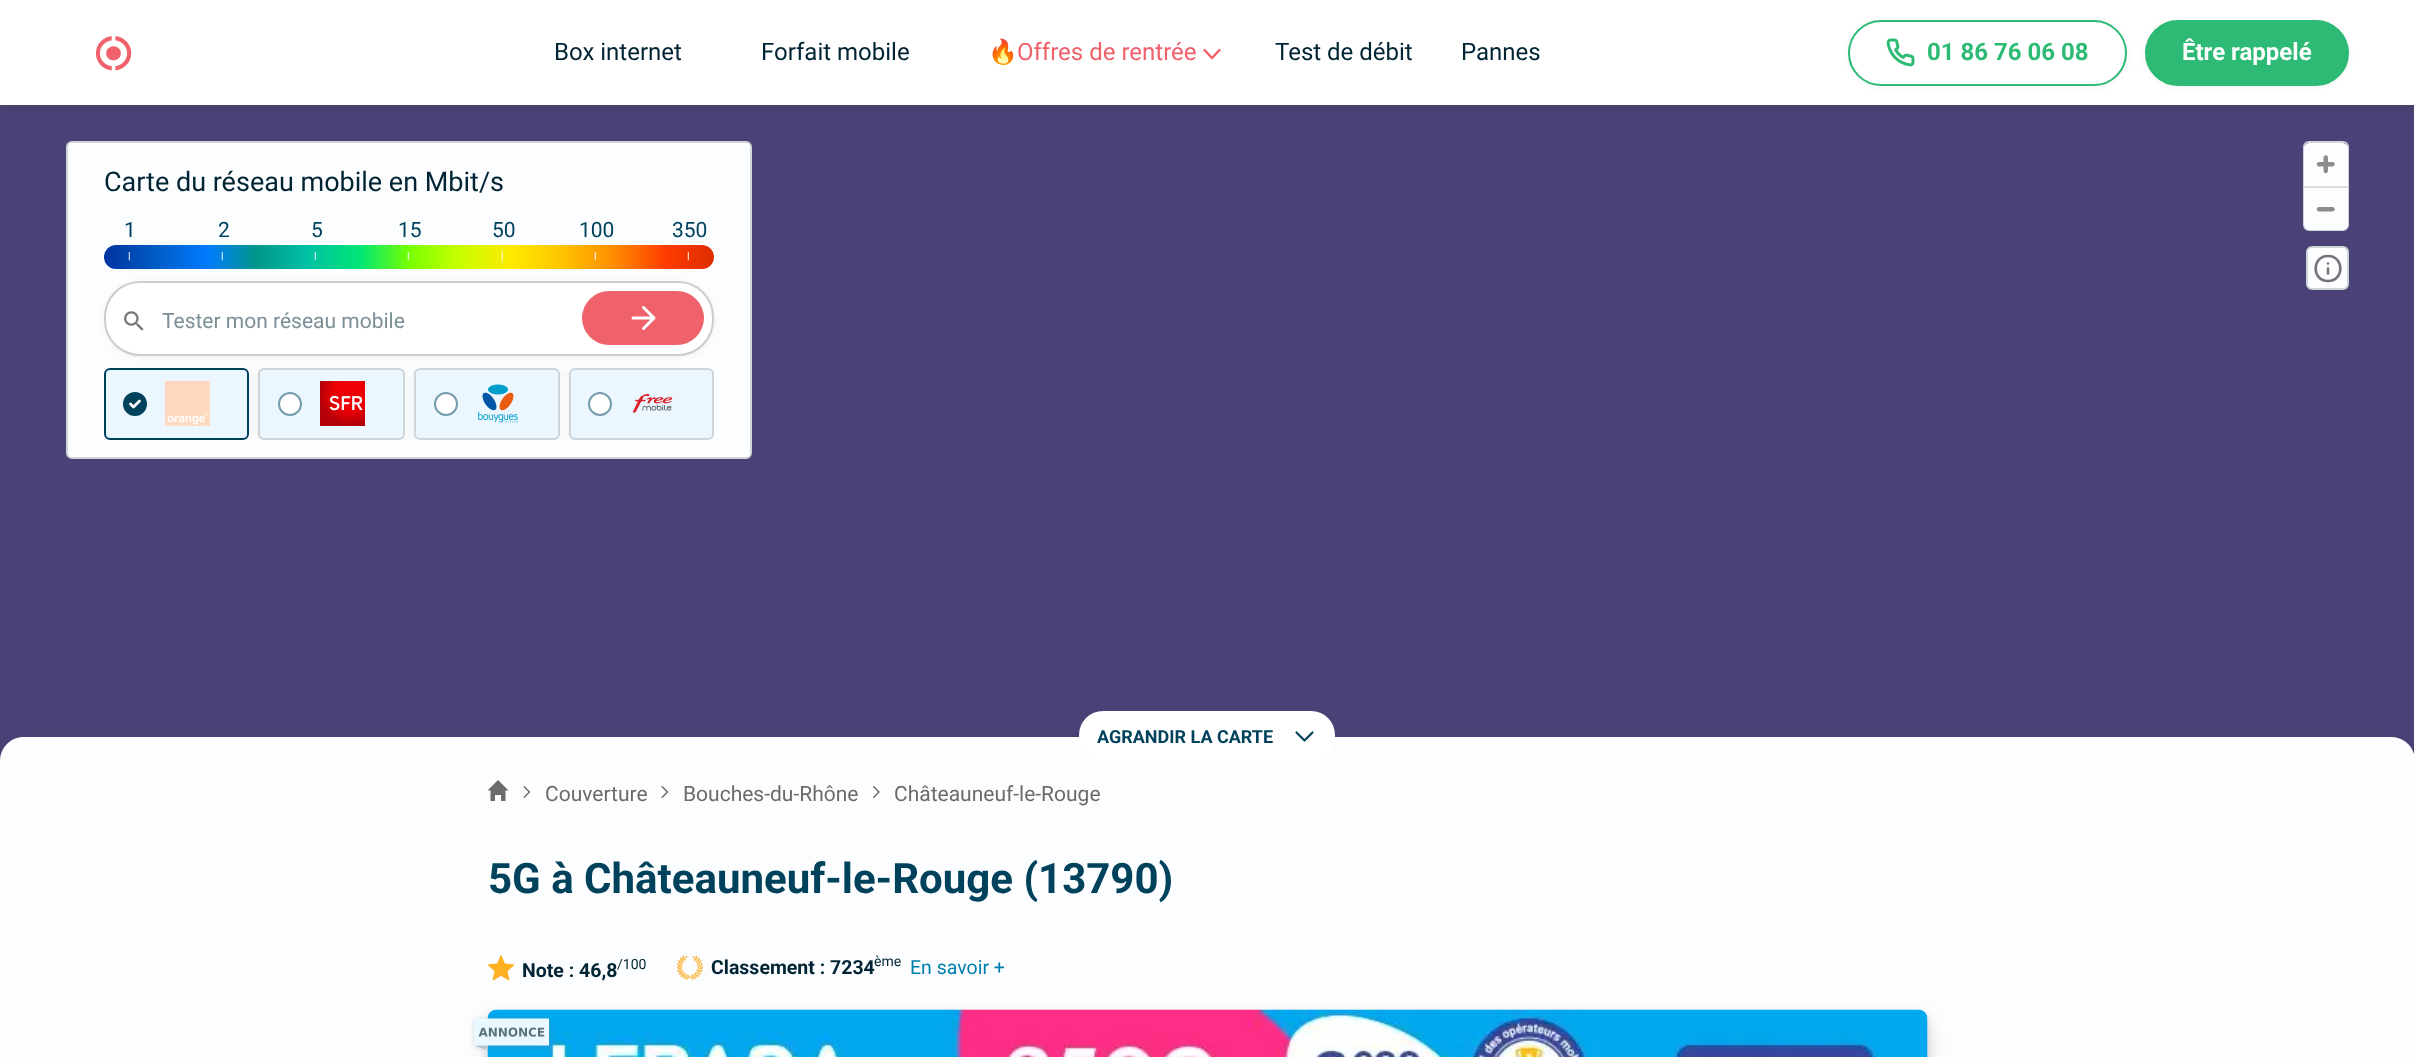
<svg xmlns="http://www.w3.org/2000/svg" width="2414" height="1057">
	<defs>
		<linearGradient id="g1" gradientUnits="userSpaceOnUse" x1="104" y1="257" x2="714" y2="257"><stop offset="0" stop-color="#0033A0" /><stop offset="0.08" stop-color="#005AC1" /><stop offset="0.17" stop-color="#007BFF" /><stop offset="0.25" stop-color="#009688" /><stop offset="0.33" stop-color="#00BFA5" /><stop offset="0.42" stop-color="#00E676" /><stop offset="0.5" stop-color="#76FF03" /><stop offset="0.58" stop-color="#C6FF00" /><stop offset="0.67" stop-color="#FFEA00" /><stop offset="0.75" stop-color="#FFC400" /><stop offset="0.83" stop-color="#FF9100" /><stop offset="0.92" stop-color="#FF3D00" /><stop offset="1" stop-color="#DD2C00" /></linearGradient>
		<clipPath id="clip1"><rect x="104" y="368" width="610" height="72" /></clipPath>
	</defs>
	<rect width="100%" height="100%" fill="#4A4276" />
	<rect x="0" y="3" width="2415" height="105" fill="#3C3C3C" fill-opacity="0.2" filter="blur(3px)" />
	<rect x="0" y="0" width="2414" height="105" fill="#FFFFFF" />
	<image x="96" y="36" width="36" height="35" href="assets/img1.png" />
	<g font-family="Roboto" font-size="24" fill="#002433">
		<text x="554" y="60">Box internet</text>
		<text x="761" y="60">Forfait mobile</text>
	</g>
	<text x="988" y="60" font-family="Noto Color Emoji" font-size="24" fill="#EF626C">🔥</text>
	<text x="1017" y="60" font-family="Roboto" font-size="24" fill="#EF626C">Offres de rentrée</text>
	<path d="M1204.5 50L1212 58L1219.5 50" fill="none" stroke="#EF626C" stroke-width="2.5" stroke-linecap="round" stroke-linejoin="round" />
	<g font-family="Roboto" font-size="24" fill="#002433">
		<text x="1275" y="60">Test de débit</text>
		<text x="1461" y="60">Pannes</text>
	</g>
	<rect x="1848" y="21" width="279" height="66" rx="33" fill="#000000" fill-opacity="0.05" filter="blur(3px)" />
	<rect x="1849" y="21" width="277" height="64" rx="32" fill="#FFFFFF" stroke="#2CBA74" stroke-width="2" />
	<image x="1886" y="38" width="29" height="29" href="assets/img2.png" />
	<text x="1927" y="60" font-family="Roboto" font-size="24" font-weight="700" fill="#2CBA74">01 86 76 06 08</text>
	<rect x="2145" y="21" width="204" height="66" rx="33" fill="#000000" fill-opacity="0.05" filter="blur(3px)" />
	<rect x="2146" y="21" width="202" height="64" rx="32" fill="#2CBA74" stroke="#2CBA74" stroke-width="2" />
	<text x="2182" y="60" font-family="Roboto" font-size="24" font-weight="700" fill="#FFFFFF">Être rappelé</text>
	<rect x="67" y="142" width="684" height="316" rx="5" fill="#FBFDFF" stroke="#CED5D8" stroke-width="2" />
	<text x="104" y="191" font-family="Roboto" font-size="27" fill="#002433">Carte du réseau mobile en Mbit/s</text>
	<rect x="104" y="245" width="610" height="24" rx="12" fill="url(#g1)" />
	<text x="124" y="237" font-family="Roboto" font-size="21" fill="#00425C">1</text>
	<text x="128" y="259" font-family="Roboto" font-size="10" font-weight="700" fill="#FFFFFF">|</text>
	<text x="218" y="237" font-family="Roboto" font-size="21" fill="#00425C">2</text>
	<text x="221" y="259" font-family="Roboto" font-size="10" font-weight="700" fill="#FFFFFF">|</text>
	<text x="311" y="237" font-family="Roboto" font-size="21" fill="#00425C">5</text>
	<text x="314" y="259" font-family="Roboto" font-size="10" font-weight="700" fill="#FFFFFF">|</text>
	<text x="398" y="237" font-family="Roboto" font-size="21" fill="#00425C">15</text>
	<text x="407" y="259" font-family="Roboto" font-size="10" font-weight="700" fill="#FFFFFF">|</text>
	<text x="492" y="237" font-family="Roboto" font-size="21" fill="#00425C">50</text>
	<text x="501" y="259" font-family="Roboto" font-size="10" font-weight="700" fill="#FFFFFF">|</text>
	<text x="579" y="237" font-family="Roboto" font-size="21" fill="#00425C">100</text>
	<text x="594" y="259" font-family="Roboto" font-size="10" font-weight="700" fill="#FFFFFF">|</text>
	<text x="672" y="237" font-family="Roboto" font-size="21" fill="#00425C">350</text>
	<text x="687" y="259" font-family="Roboto" font-size="10" font-weight="700" fill="#FFFFFF">|</text>
	<rect x="104" y="282" width="610" height="75" rx="36" fill="#000000" fill-opacity="0.05" filter="blur(3px)" />
	<rect x="105" y="282" width="608" height="73" rx="35" fill="#FFFFFF" stroke="#CCCCCC" stroke-width="2" />
	<image x="124" y="311" width="20" height="20" href="assets/img3.png" />
	<text x="162" y="328" font-family="Roboto" font-size="21" fill="#7C8F96">Tester mon réseau mobile</text>
	<rect x="582" y="291" width="122" height="54" rx="27" fill="#EF626C" />
	<path d="M633 318H654M643.5 307.5L654 318L643.5 328.5" fill="none" stroke="#FFFFFF" stroke-width="3" stroke-linecap="round" stroke-linejoin="round" />
	<g clip-path="url(#clip1)">
		<rect x="104" y="369" width="145" height="72" rx="6" fill="#000000" fill-opacity="0.05" filter="blur(4px)" />
	</g>
	<rect x="105" y="369" width="143" height="70" rx="5" fill="#EBF6FF" stroke="#00425C" stroke-width="2" />
	<circle cx="135" cy="404" r="11" fill="#00425C" stroke="#00425C" stroke-width="2" />
	<path d="M139.5 401L133.5 407L130.5 404" fill="none" stroke="#FFFFFF" stroke-width="2.8" stroke-linecap="round" stroke-linejoin="round" />
	<image x="165" y="381" width="45" height="45" href="assets/img4.png" />
	<g clip-path="url(#clip1)">
		<rect x="258" y="369" width="147" height="72" rx="6" fill="#000000" fill-opacity="0.05" filter="blur(4px)" />
	</g>
	<rect x="259" y="369" width="145" height="70" rx="5" fill="#EBF6FF" stroke="#CED5D8" stroke-width="2" />
	<circle cx="290" cy="404" r="11" fill="#FFFFFF" stroke="#769CAE" stroke-width="2" />
	<image x="320" y="381" width="45" height="45" href="assets/img5.png" />
	<g clip-path="url(#clip1)">
		<rect x="414" y="369" width="146" height="72" rx="6" fill="#000000" fill-opacity="0.05" filter="blur(4px)" />
	</g>
	<rect x="415" y="369" width="144" height="70" rx="5" fill="#EBF6FF" stroke="#CED5D8" stroke-width="2" />
	<circle cx="446" cy="404" r="11" fill="#FFFFFF" stroke="#769CAE" stroke-width="2" />
	<image x="478" y="384" width="40" height="39" href="assets/img6.png" />
	<g clip-path="url(#clip1)">
		<rect x="569" y="369" width="145" height="72" rx="6" fill="#000000" fill-opacity="0.05" filter="blur(4px)" />
	</g>
	<rect x="570" y="369" width="143" height="70" rx="5" fill="#EBF6FF" stroke="#CED5D8" stroke-width="2" />
	<circle cx="600" cy="404" r="11" fill="#FFFFFF" stroke="#769CAE" stroke-width="2" />
	<image x="632" y="394" width="41" height="19" href="assets/img7.png" />
	<rect x="2304" y="142" width="44" height="88" rx="5" fill="none" stroke="#CED5D8" stroke-width="2" />
	<path d="M2310 143H2342C2345.5 143 2348 145.5 2348 149V186H2304V149C2304 145.5 2306.5 143 2310 143Z" fill="#FBFDFF" />
	<image x="2316" y="155" width="19" height="19" href="assets/img8.png" />
	<path d="M2304 186H2348V224C2348 227.5 2345.5 230 2342 230H2310C2306.5 230 2304 227.5 2304 224Z" fill="#FBFDFF" />
	<rect x="2304" y="186" width="44" height="2" fill="#DDDDDD" />
	<image x="2316" y="207" width="19" height="5" href="assets/img9.png" />
	<rect x="2307" y="247" width="41" height="42" rx="5" fill="#FBFDFF" stroke="#CED5D8" stroke-width="2" />
	<path d="M2328 281C2344.5 281 2344.5 256 2328 256C2311.5 256 2311.5 281 2328 281ZM2328 273.5V268.5M2328 263.5H2328" fill="none" stroke="#737477" stroke-width="2.5" stroke-linecap="round" stroke-linejoin="round" />
	<rect x="0" y="740" width="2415" height="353" rx="24" fill="#000000" fill-opacity="0.1" filter="blur(4px)" />
	<path d="M24 737H2391C2404.5 737 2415 747.5 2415 761V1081H0V761C0 747.5 10.5 737 24 737Z" fill="#FBFDFF" />
	<rect x="1079" y="711" width="256" height="51" rx="24" fill="#FFFFFF" />
	<text x="1097" y="743" font-family="Roboto" font-size="18" font-weight="700" fill="#00425C">AGRANDIR LA CARTE</text>
	<path d="M1312.5 732.5L1304.5 740.5L1296.5 732.5" fill="none" stroke="#00425C" stroke-width="2.2" stroke-linecap="round" stroke-linejoin="round" />
	<image x="488" y="780" width="21" height="21" href="assets/img10.png" />
	<image x="523" y="786" width="8" height="12" href="assets/img11.png" />
	<text x="545" y="801" font-family="Roboto" font-size="21" fill="#6B6B6B">Couverture</text>
	<image x="661" y="786" width="8" height="12" href="assets/img11.png" />
	<text x="683" y="801" font-family="Roboto" font-size="21" fill="#6B6B6B">Bouches-du-Rhône</text>
	<image x="873" y="786" width="7" height="12" href="assets/img12.png" />
	<text x="894" y="801" font-family="Roboto" font-size="21" fill="#6B6B6B">Châteauneuf-le-Rouge</text>
	<text x="488" y="893" font-family="Roboto" font-size="42" font-weight="700" fill="#00425C">5G à Châteauneuf-le-Rouge (13790)</text>
	<image x="488" y="955" width="27" height="26" href="assets/img13.png" />
	<text x="522" y="977" font-family="Roboto" font-size="19.5" font-weight="700" fill="#002433">Note : 46,8</text>
	<text x="617" y="969" font-family="Roboto" font-size="14" fill="#002433">/100</text>
	<image x="677" y="955" width="27" height="25" href="assets/img14.png" />
	<text x="711" y="974" font-family="Roboto" font-size="19.5" font-weight="700" fill="#002433">Classement : 7234</text>
	<text x="874" y="966" font-family="Roboto" font-size="14" fill="#002433">ème</text>
	<text x="910" y="974" font-family="Roboto" font-size="19.5" fill="#007FAD">En savoir +</text>
	<rect x="488" y="1013" width="1440" height="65" rx="9" fill="#000000" fill-opacity="0.1" filter="blur(4px)" />
	<rect x="488" y="1017" width="1440" height="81" rx="9" fill="#000000" fill-opacity="0.06" filter="blur(10.5px)" />
	<rect x="488" y="1023" width="1440" height="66" rx="9" fill="#000000" fill-opacity="0.07" filter="blur(7.5px)" />
	<image x="487" y="1009" width="1441" height="48" href="assets/img15.png" />
	<image x="471" y="1015" width="83" height="36" href="assets/img16.png" />
</svg>
